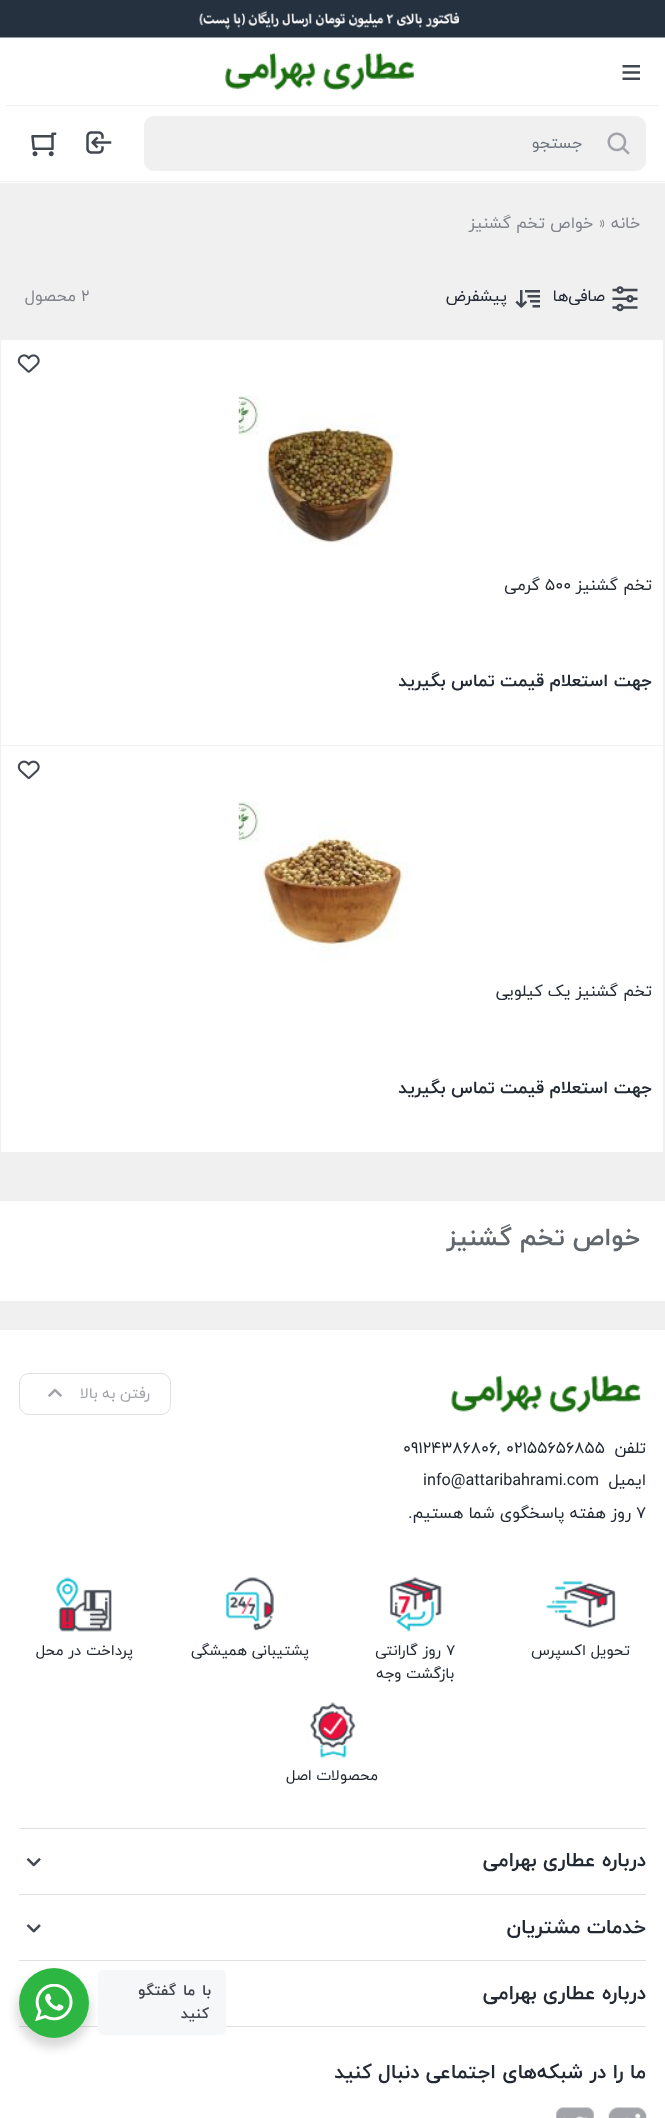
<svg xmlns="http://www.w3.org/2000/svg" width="665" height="2118">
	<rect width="100%" height="100%" fill="#F0F0F1" />
	<rect x="0" y="37" width="665" height="146" fill="#FFFFFF" />
	<rect x="0" y="181" width="665" height="1" fill="#F0F0F1" />
	<image x="0" y="0" width="665" height="38" href="assets/img1.png" />
	<rect x="6" y="105" width="653" height="1" fill="#F0F0F1" />
	<image x="622" y="65" width="18" height="15" href="assets/img2.png" />
	<image x="224" y="52" width="191" height="39" href="assets/img3.png" />
	<rect x="144.5" y="116.5" width="501" height="54" rx="9.5" fill="#F0F0F1" stroke="#F0F0F1" />
	<image x="607" y="132" width="23" height="23" href="assets/img4.png" />
	<text x="582" y="148" font-family="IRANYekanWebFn" font-size="16.25" direction="rtl" fill="#6C757D">جستجو</text>
	<image x="86" y="131" width="26" height="23" href="assets/img5.png" />
	<image x="31" y="132" width="26" height="25" href="assets/img6.png" />
	<text x="640" y="228" font-family="IRANYekanWebFn" font-size="16.25" direction="rtl" fill="#81858B">خانه</text>
	<text x="598" y="228" font-family="IRANYekanWebFn" font-size="16.25" fill="#81858B">»</text>
	<text x="593" y="228" font-family="IRANYekanWebFn" font-size="16.25" direction="rtl" fill="#81858B">خواص تخم گشنیز</text>
	<image x="612" y="286" width="26" height="26" href="assets/img7.png" />
	<text x="605" y="301" font-family="IRANYekanWebFn" font-size="16.25" direction="rtl" fill="#232933">صافی‌ها</text>
	<image x="515" y="290" width="25" height="18" href="assets/img8.png" />
	<text x="507" y="301" font-family="IRANYekanWebFn" font-size="16.25" direction="rtl" fill="#232933">پیشفرض</text>
	<text x="81" y="301" font-family="IRANYekanWebFn" font-size="16.25" fill="#81858B">2</text>
	<text x="76" y="301" font-family="IRANYekanWebFn" font-size="16.25" direction="rtl" fill="#81858B">محصول</text>
	<rect x="1" y="340" width="662" height="405" fill="#FFFFFF" />
	<image x="17" y="354" width="23" height="19" href="assets/img9.png" />
	<image x="238" y="395" width="161" height="150" href="assets/img10.png" />
	<text x="652" y="590" font-family="IRANYekanWebFn" font-size="16.25" direction="rtl" fill="#232933">تخم گشنیز</text>
	<text x="545" y="590" font-family="IRANYekanWebFn" font-size="16.25" fill="#232933">500</text>
	<text x="540" y="590" font-family="IRANYekanWebFn" font-size="16.25" direction="rtl" fill="#232933">گرمی</text>
	<text x="652" y="686" font-family="IRANYekanWebFn" font-size="17.5" font-weight="700" direction="rtl" fill="#232933">جهت استعلام قیمت تماس بگیرید</text>
	<rect x="1" y="746" width="662" height="406" fill="#FFFFFF" />
	<image x="17" y="760" width="23" height="19" href="assets/img11.png" />
	<image x="238" y="801" width="171" height="160" href="assets/img12.png" />
	<text x="652" y="996" font-family="IRANYekanWebFn" font-size="16.25" direction="rtl" fill="#232933">تخم گشنیز یک کیلویی</text>
	<text x="652" y="1093" font-family="IRANYekanWebFn" font-size="17.5" font-weight="700" direction="rtl" fill="#232933">جهت استعلام قیمت تماس بگیرید</text>
	<rect x="0" y="1201" width="665" height="100" fill="#FFFFFF" />
	<text x="640" y="1245" font-family="IRANYekanWebFn" font-size="25" font-weight="700" direction="rtl" fill="#62666D">خواص تخم گشنیز</text>
	<rect x="0" y="1330" width="665" height="788" fill="#FFFFFF" />
	<image x="451" y="1375" width="190" height="38" href="assets/img13.png" />
	<rect x="19.5" y="1373.5" width="151" height="41" rx="9.5" fill="none" stroke="#E0E0E2" />
	<text x="150" y="1398" font-family="IRANYekanWebFn" font-size="15" direction="rtl" fill="#A1A3A8">رفتن به بالا</text>
	<image x="48" y="1388" width="14" height="9" href="assets/img14.png" />
	<text x="646" y="1453" font-family="IRANYekanWebFn" font-size="16.25" direction="rtl" fill="#232933">تلفن</text>
	<g font-family="IRANYekanWebFn" font-size="16.25" fill="#232933">
		<text x="506" y="1453">02155656855</text>
		<text x="497" y="1453">,</text>
		<text x="403" y="1453">09124386806</text>
	</g>
	<text x="646" y="1485" font-family="IRANYekanWebFn" font-size="16.25" direction="rtl" fill="#232933">ایمیل</text>
	<g font-family="IRANYekanWebFn" font-size="16.25" fill="#232933">
		<text x="423" y="1485">info@attaribahrami.com</text>
		<text x="636" y="1518">۷</text>
	</g>
	<text x="631" y="1518" font-family="IRANYekanWebFn" font-size="16.25" direction="rtl" fill="#232933">روز هفته پاسخگوی شما هستیم.</text>
	<image x="546" y="1581" width="70" height="47" href="assets/img15.png" />
	<text x="630" y="1655" font-family="IRANYekanWebFn" font-size="15" direction="rtl" fill="#232933">تحویل اکسپرس</text>
	<image x="389" y="1577" width="53" height="55" href="assets/img16.png" />
	<text x="446" y="1655" font-family="IRANYekanWebFn" font-size="15" fill="#232933">7</text>
	<g font-family="IRANYekanWebFn" font-size="15" direction="rtl" fill="#232933">
		<text x="441" y="1655">روز گارانتی</text>
		<text x="454" y="1678">بازگشت وجه</text>
	</g>
	<image x="226" y="1577" width="48" height="54" href="assets/img17.png" />
	<text x="309" y="1655" font-family="IRANYekanWebFn" font-size="15" direction="rtl" fill="#232933">پشتیبانی همیشگی</text>
	<image x="56" y="1577" width="56" height="55" href="assets/img18.png" />
	<text x="133" y="1655" font-family="IRANYekanWebFn" font-size="15" direction="rtl" fill="#232933">پرداخت در محل</text>
	<image x="309" y="1702" width="47" height="56" href="assets/img19.png" />
	<text x="378" y="1780" font-family="IRANYekanWebFn" font-size="15" direction="rtl" fill="#232933">محصولات اصل</text>
	<rect x="19" y="1828" width="627" height="1" fill="#E0E0E2" />
	<rect x="19" y="1894" width="627" height="1" fill="#E0E0E2" />
	<text x="646" y="1866" font-family="IRANYekanWebFn" font-size="20" font-weight="700" direction="rtl" fill="#232933">درباره عطاری بهرامی</text>
	<image x="26" y="1858" width="15" height="9" href="assets/img20.png" />
	<rect x="19" y="1960" width="627" height="1" fill="#E0E0E2" />
	<text x="646" y="1933" font-family="IRANYekanWebFn" font-size="20" font-weight="700" direction="rtl" fill="#232933">خدمات مشتریان</text>
	<image x="26" y="1924" width="15" height="9" href="assets/img21.png" />
	<rect x="19" y="2026" width="627" height="1" fill="#E0E0E2" />
	<g font-family="IRANYekanWebFn" font-size="20" font-weight="700" direction="rtl" fill="#232933">
		<text x="646" y="1999">درباره عطاری بهرامی</text>
		<text x="646" y="2078">ما را در شبکه‌های اجتماعی دنبال کنید</text>
	</g>
	<image x="608" y="2107" width="39" height="11" href="assets/img22.png" />
	<image x="556" y="2107" width="38" height="11" href="assets/img23.png" />
	<rect x="16" y="1973" width="75" height="75" rx="37.5" fill="#000000" fill-opacity="0.14" filter="blur(5px)" />
	<rect x="98" y="1970" width="128" height="65" rx="5" fill="#F5F7F9" />
	<g font-family="IRANYekanWebFn" font-size="15" font-weight="700" letter-spacing="-0.5" direction="rtl" fill="#43474E">
		<text x="211" y="1995" word-spacing="2">با ما گفتگو</text>
		<text x="209" y="2018">کنید</text>
	</g>
	<circle cx="54" cy="2003" r="35" fill="#2DB742" />
	<image x="35" y="1984" width="38" height="37" href="assets/img24.png" />
</svg>
